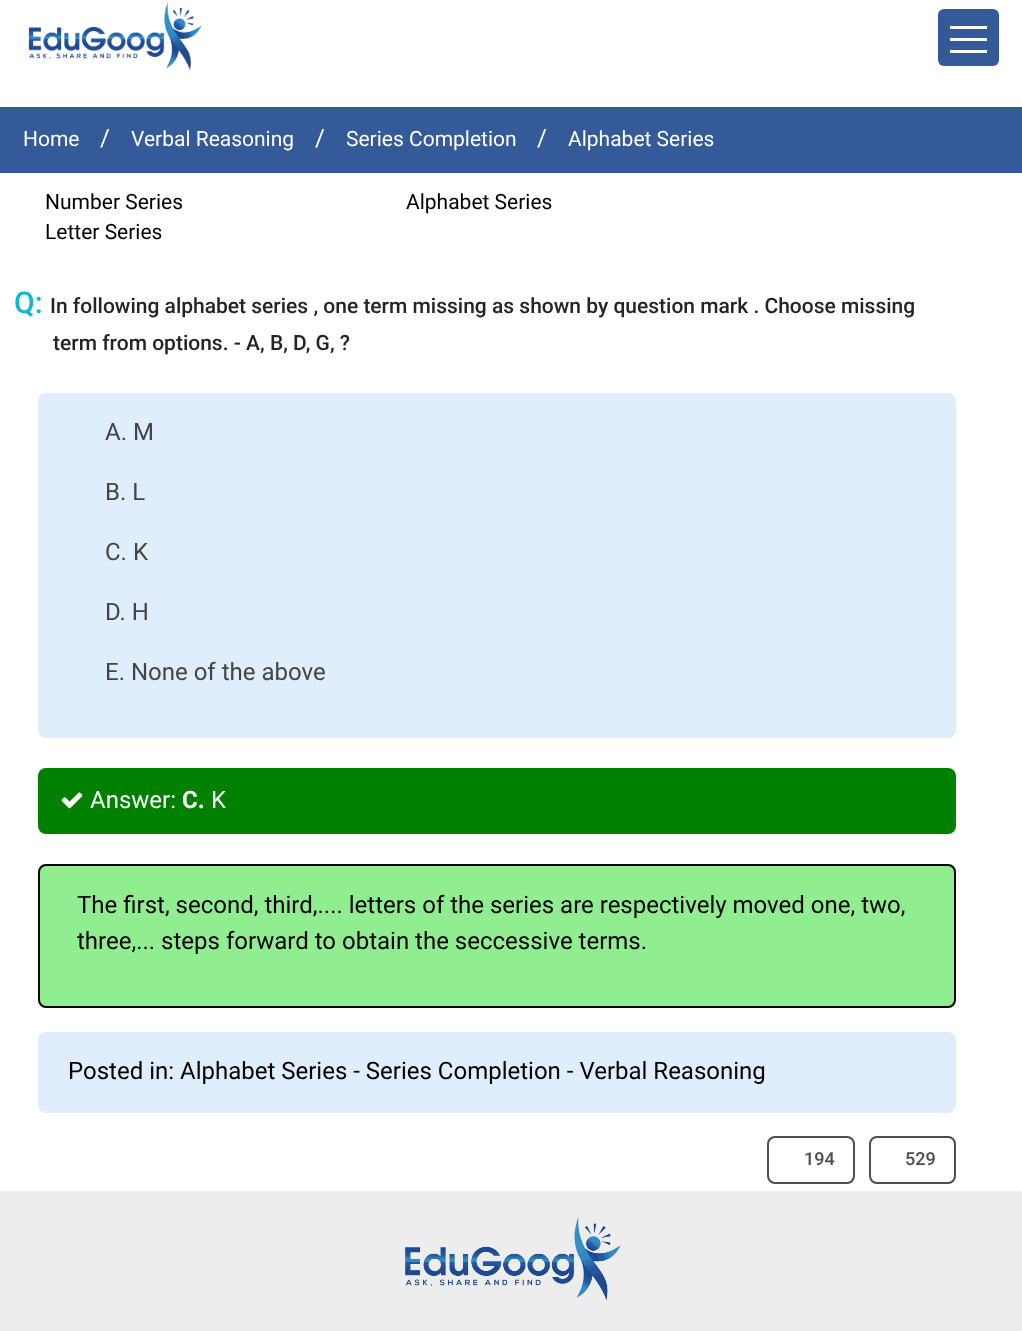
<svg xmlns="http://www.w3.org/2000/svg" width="1022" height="1331">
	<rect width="100%" height="100%" fill="#FFFFFF" />
	<image x="28" y="2" width="174" height="69" href="assets/img1.png" />
	<rect x="938" y="9" width="61" height="57" rx="6" fill="#355A9A" />
	<rect x="950" y="26" width="37" height="3" fill="#FFFFFF" />
	<rect x="950" y="38" width="37" height="3" fill="#FFFFFF" />
	<rect x="950" y="50" width="37" height="3" fill="#FFFFFF" />
	<rect x="0" y="107" width="1022" height="66" fill="#355A9A" />
	<text x="23" y="146" font-family="Roboto" font-size="21" fill="#FFFFFF">Home</text>
	<text x="100" y="146" font-family="Roboto" font-size="24" fill="#FFFFFF">/</text>
	<text x="131" y="146" font-family="Roboto" font-size="21" fill="#FFFFFF">Verbal Reasoning</text>
	<text x="315" y="146" font-family="Roboto" font-size="24" fill="#FFFFFF">/</text>
	<text x="346" y="146" font-family="Roboto" font-size="21" fill="#FFFFFF">Series Completion</text>
	<text x="537" y="146" font-family="Roboto" font-size="24" fill="#FFFFFF">/</text>
	<text x="568" y="146" font-family="Roboto" font-size="21" fill="#FFFFFF">Alphabet Series</text>
	<g font-family="Roboto" font-size="21" fill="#000000">
		<text x="45" y="209">Number Series</text>
		<text x="406" y="209">Alphabet Series</text>
		<text x="45" y="239">Letter Series</text>
	</g>
	<text x="14" y="313" font-family="Roboto" font-size="30" font-weight="500" fill="#0BBBCC">Q:</text>
	<g font-family="Roboto" font-size="21" font-weight="500" fill="#212529">
		<text x="50" y="313">In following alphabet series , one term missing as shown by question mark . Choose missing</text>
		<text x="53" y="350">term from options. - A, B, D, G, ?</text>
	</g>
	<rect x="38" y="393" width="918" height="345" rx="8" fill="#E0EEFC" />
	<g font-family="Roboto" font-size="24" fill="#444444">
		<text x="105" y="440">A. M</text>
		<text x="105" y="500">B. L</text>
		<text x="105" y="560">C. K</text>
		<text x="105" y="620">D. H</text>
		<text x="105" y="680">E. None of the above</text>
	</g>
	<rect x="38" y="768" width="918" height="66" rx="8" fill="#008000" />
	<image x="61" y="792" width="22" height="17" href="assets/img2.png" />
	<text x="90" y="808" font-family="Roboto" font-size="24" fill="#FFFFFF">Answer:</text>
	<text x="182" y="808" font-family="Roboto" font-size="24" font-weight="700" fill="#FFFFFF">C.</text>
	<text x="211" y="808" font-family="Roboto" font-size="24" fill="#FFFFFF">K</text>
	<rect x="39" y="865" width="916" height="142" rx="7" fill="#90EE90" stroke="#000000" stroke-width="2" />
	<g font-family="Roboto" font-size="24" fill="#000000">
		<text x="77" y="913">The first, second, third,.... letters of the series are respectively moved one, two,</text>
		<text x="77" y="949">three,... steps forward to obtain the seccessive terms.</text>
	</g>
	<rect x="38" y="1032" width="918" height="81" rx="8" fill="#E0EDFC" />
	<text x="68" y="1079" font-family="Roboto" font-size="24" fill="#000000">Posted in: Alphabet Series - Series Completion - Verbal Reasoning</text>
	<rect x="768" y="1137" width="86" height="46" rx="7" fill="none" stroke="#4D4D4D" stroke-width="2" />
	<text x="804" y="1165" font-family="Roboto" font-size="18" font-weight="500" fill="#4D4D4D">194</text>
	<rect x="870" y="1137" width="85" height="46" rx="7" fill="none" stroke="#4D4D4D" stroke-width="2" />
	<text x="905" y="1165" font-family="Roboto" font-size="18" font-weight="500" fill="#4D4D4D">529</text>
	<rect x="0" y="1191" width="1022" height="140" fill="#EDEDED" />
	<image x="405" y="1216" width="216" height="85" href="assets/img3.png" />
</svg>
